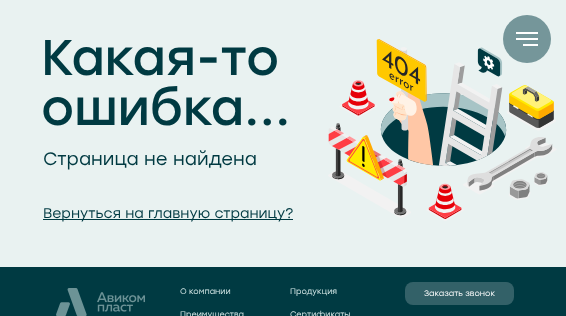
<svg xmlns="http://www.w3.org/2000/svg" width="566" height="316">
	<rect width="100%" height="100%" fill="#E9F2F1" />
	<g font-family="'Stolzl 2'" font-size="50" fill="#003A42">
		<text x="41" y="75">Какая-то</text>
		<text x="41" y="125">ошибка...</text>
	</g>
	<image x="328" y="39" width="229" height="182" href="assets/img1.png" />
	<text x="43" y="165" font-family="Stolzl" font-size="18" fill="#003A42">Страница не найдена</text>
	<rect x="43" y="219" width="250" height="1" fill="#003A42" />
	<text x="43" y="218" font-family="Stolzl" font-size="14" fill="#003A42">Вернуться на главную страницу?</text>
	<circle cx="527" cy="39" r="24" fill="#75969A" />
	<rect x="516" y="32" width="22" height="2" fill="#FFFFFF" />
	<rect x="516" y="38" width="22" height="2" fill="#FFFFFF" />
	<rect x="523" y="44" width="15" height="2" fill="#FFFFFF" />
	<rect x="0" y="267" width="566" height="49" fill="#003A42" />
	<image x="56" y="288" width="89" height="28" href="assets/img2.png" />
	<g font-family="Stolzl" font-size="8" fill="#D8EBEA">
		<text x="180" y="294">О компании</text>
		<text x="290" y="294">Продукция</text>
	</g>
	<rect x="405" y="282" width="109" height="23" rx="8" fill="#336168" />
	<text x="424" y="296" font-family="Stolzl" font-size="8" fill="#FFFFFF">Заказать звонок</text>
	<g font-family="Stolzl" font-size="8" fill="#D8EBEA">
		<text x="180" y="317">Преимущества</text>
		<text x="290" y="317">Сертификаты</text>
	</g>
</svg>
